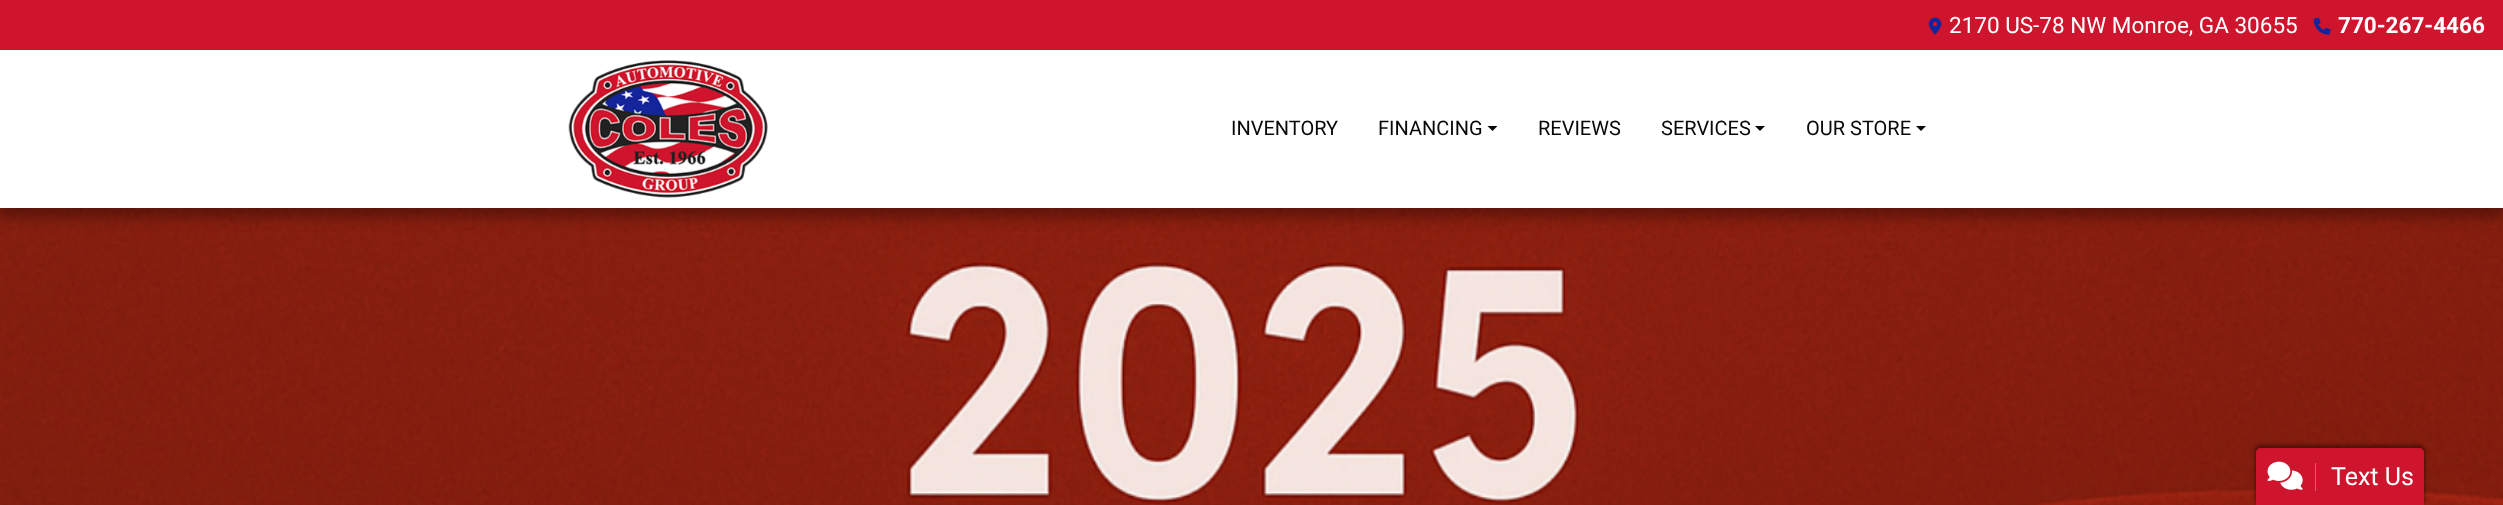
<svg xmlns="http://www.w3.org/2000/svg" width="2503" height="505">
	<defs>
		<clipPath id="clip1"><path d="M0 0H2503V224H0ZM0 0H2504V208H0Z" clip-rule="evenodd" /></clipPath>
		<clipPath id="clip2"><path d="M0 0H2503V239H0ZM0 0H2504V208H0Z" clip-rule="evenodd" /></clipPath>
	</defs>
	<rect width="100%" height="100%" fill="#FFFFFF" />
	<image x="0" y="208" width="2503" height="297" href="assets/img4.png" />
	<g clip-path="url(#clip1)">
		<rect x="0" y="6" width="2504" height="208" fill="#000000" fill-opacity="0.1" filter="blur(3px)" />
	</g>
	<g clip-path="url(#clip2)">
		<rect x="0" y="13" width="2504" height="207" fill="#000000" fill-opacity="0.2" filter="blur(6px)" />
	</g>
	<rect x="0" y="207" width="2503" height="1" fill="#FFFFFF" fill-opacity="0.9" />
	<rect x="0" y="0" width="2503" height="50" fill="#CF152D" />
	<image x="1928" y="17" width="14" height="18" href="assets/img1.png" />
	<text x="1949" y="33" font-family="Roboto" font-size="22.5" fill="#FFFFFF">2170 US-78 NW Monroe, GA 30655</text>
	<image x="2313" y="17" width="18" height="18" href="assets/img2.png" />
	<text x="2338" y="33" font-family="Roboto" font-size="22.5" font-weight="700" fill="#FFFFFF">770-267-4466</text>
	<image x="568" y="60" width="200" height="138" href="assets/img3.png" />
	<g font-family="Roboto" font-size="20" fill="#080808">
		<text x="1231" y="135">INVENTORY</text>
		<text x="1378" y="135">FINANCING</text>
	</g>
	<path d="M1487.5 126H1497.5L1492.5 131Z" fill="#080808" />
	<g font-family="Roboto" font-size="20" fill="#080808">
		<text x="1538" y="135">REVIEWS</text>
		<text x="1661" y="135">SERVICES</text>
	</g>
	<path d="M1755 126H1765L1760 131Z" fill="#080808" />
	<text x="1806" y="135" font-family="Roboto" font-size="20" fill="#080808">OUR STORE</text>
	<path d="M1916 126H1926L1921 131Z" fill="#080808" />
	<rect x="2255" y="445" width="170" height="60" rx="6" fill="#000000" fill-opacity="0.25" filter="blur(1px)" />
	<rect x="2254" y="444" width="172" height="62" rx="8" fill="#000000" fill-opacity="0.15" filter="blur(2px)" />
	<path d="M2261 448H2419C2422 448 2424 450 2424 453V505H2256V453C2256 450 2258 448 2261 448Z" fill="#CF152D" />
	<rect x="2315" y="463" width="1" height="28" fill="#DD5B6C" />
	<image x="2267" y="461" width="36" height="29" href="assets/img5.png" />
	<text x="2331" y="485" font-family="Roboto" font-size="25" fill="#FFFFFF">Text Us</text>
</svg>
